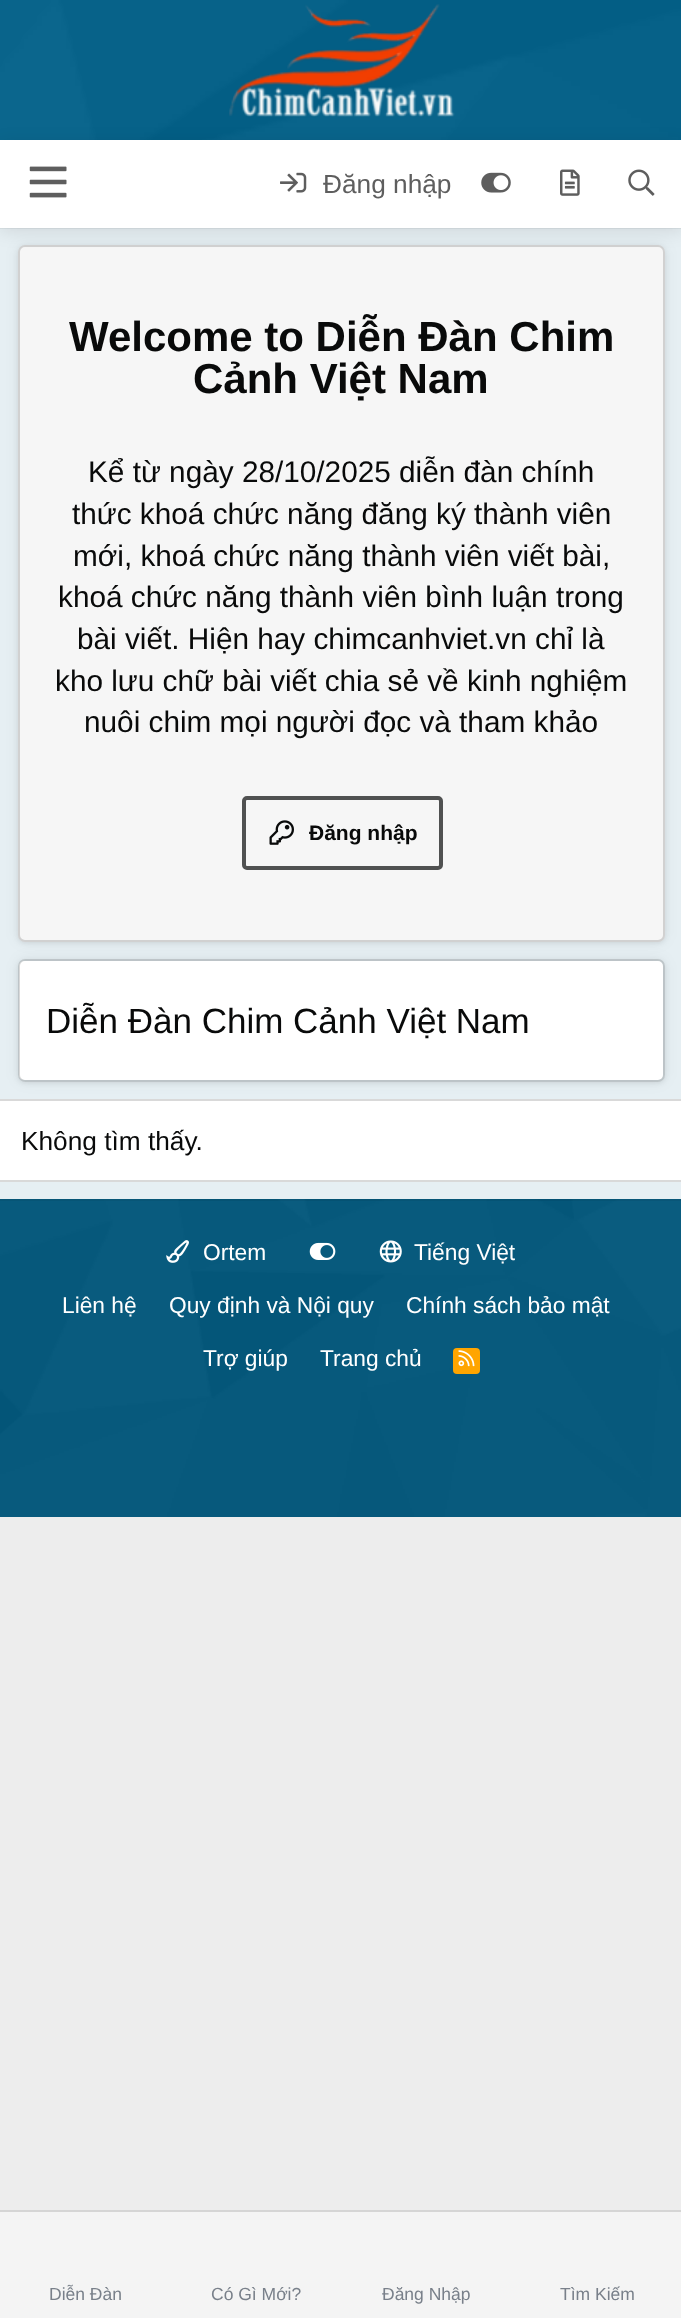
<svg xmlns="http://www.w3.org/2000/svg" width="681" height="2318">
	<defs>
		<clipPath id="clip1"><path d="M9 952H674V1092H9ZM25 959H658C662 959 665 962 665 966V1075C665 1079 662 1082 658 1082H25C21 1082 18 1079 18 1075V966C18 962 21 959 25 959Z" clip-rule="evenodd" /></clipPath>
	</defs>
	<rect width="100%" height="100%" fill="#EDEDED" />
	<rect x="0" y="0" width="681" height="140" fill="#04628A" />
	<image x="0" y="0" width="681" height="140" href="assets/img1.png" />
	<image x="229" y="4" width="226" height="113" href="assets/img2.png" />
	<rect x="0" y="229" width="681" height="970" fill="#E6EFF3" />
	<g clip-path="url(#clip1)">
		<rect x="18" y="961" width="647" height="122" rx="7" fill="#000000" fill-opacity="0.08" filter="blur(2.5px)" />
	</g>
	<rect x="18" y="959" width="647" height="123" rx="7" fill="#000000" fill-opacity="0.06" filter="blur(7px)" />
	<rect x="19" y="961" width="644" height="119" rx="5" fill="#FFFFFF" />
	<rect x="19" y="960" width="645" height="121" rx="6" fill="none" stroke="#000000" stroke-opacity="0.15" stroke-width="2" />
	<rect x="18" y="245" width="647" height="697" rx="7" fill="#000000" fill-opacity="0.06" filter="blur(7px)" />
	<path d="M0 228V229H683V142H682V228Z" fill="#DAE3E7" />
	<rect x="18" y="247" width="647" height="696" rx="7" fill="#000000" fill-opacity="0.08" filter="blur(2.5px)" />
	<rect x="18" y="245" width="647" height="697" rx="7" fill="#F6F6F6" />
	<rect x="19" y="246" width="645" height="695" rx="6" fill="none" stroke="#000000" stroke-opacity="0.15" stroke-width="2" />
	<rect x="0" y="144" width="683" height="87" fill="#000000" fill-opacity="0.1" filter="blur(9px)" />
	<rect x="0" y="140" width="681" height="88" fill="#FFFFFF" />
	<image x="29" y="166" width="38" height="32" href="assets/img3.png" />
	<image x="280" y="172" width="27" height="21" href="assets/img4.png" />
	<text x="323" y="193" font-family="Liberation Sans" font-size="26.25" fill="#5E5E5E">Đăng nhập</text>
	<image x="481" y="172" width="30" height="21" href="assets/img5.png" />
	<image x="560" y="169" width="20" height="27" href="assets/img6.png" />
	<image x="628" y="169" width="27" height="27" href="assets/img7.png" />
	<g font-family="Liberation Sans" font-size="42" font-weight="700" fill="#090A0A">
		<text x="69" y="351">Welcome to Diễn Đàn Chim</text>
		<text x="193" y="393">Cảnh Việt Nam</text>
	</g>
	<g font-family="Liberation Sans" font-size="29.75" fill="#090A0A">
		<text x="88" y="482">Kể từ ngày 28/10/2025 diễn đàn chính</text>
		<text x="72" y="524">thức khoá chức năng đăng ký thành viên</text>
		<text x="73" y="566">mới, khoá chức năng thành viên viết bài,</text>
		<text x="58" y="607">khoá chức năng thành viên bình luận trong</text>
		<text x="77" y="649">bài viết. Hiện hay chimcanhviet.vn chỉ là</text>
		<text x="55" y="691">kho lưu chữ bài viết chia sẻ về kinh nghiệm</text>
		<text x="84" y="732">nuôi chim mọi người đọc và tham khảo</text>
	</g>
	<rect x="244" y="798" width="197" height="70" rx="3" fill="none" stroke="#505151" stroke-width="4" />
	<image x="269" y="820" width="25" height="25" href="assets/img8.png" />
	<text x="309" y="840" font-family="Liberation Sans" font-size="21" font-weight="700" fill="#090A0A">Đăng nhập</text>
	<text x="46" y="1033" font-family="Liberation Sans" font-size="35" fill="#090A0A">Diễn Đàn Chim Cảnh Việt Nam</text>
	<rect x="0" y="1101" width="681" height="79" fill="#FFFFFF" />
	<rect x="0" y="1099" width="681" height="2" fill="#D9D9D9" />
	<rect x="0" y="1180" width="681" height="2" fill="#D9D9D9" />
	<text x="21" y="1150" font-family="Liberation Sans" font-size="26.25" fill="#090A0A">Không tìm thấy.</text>
	<rect x="0" y="1199" width="681" height="2" fill="#04628A" />
	<rect x="0" y="1201" width="681" height="316" fill="#04587C" />
	<image x="0" y="1199" width="681" height="318" href="assets/img9.png" />
	<rect x="0" y="1199" width="681" height="2" fill="#000000" fill-opacity="0.15" />
	<image x="166" y="1240" width="23" height="23" href="assets/img10.png" />
	<text x="203" y="1260" font-family="Liberation Sans" font-size="22.75" fill="#FFFFFF">Ortem</text>
	<image x="309" y="1242" width="27" height="18" href="assets/img11.png" />
	<image x="379" y="1240" width="23" height="23" href="assets/img12.png" />
	<g font-family="Liberation Sans" font-size="22.75" fill="#FFFFFF">
		<text x="414" y="1260">Tiếng Việt</text>
		<text x="62" y="1313">Liên hệ</text>
		<text x="169" y="1313">Quy định và Nội quy</text>
		<text x="406" y="1313">Chính sách bảo mật</text>
		<text x="203" y="1366">Trợ giúp</text>
		<text x="320" y="1366">Trang chủ</text>
	</g>
	<rect x="453" y="1348" width="27" height="26" rx="4" fill="#FFA500" />
	<image x="458" y="1350" width="17" height="17" href="assets/img13.png" />
	<path d="M0 2210V2212H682V2317H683V2210Z" fill="#D5D5D5" />
	<rect x="0" y="2212" width="681" height="106" fill="#F4F4F4" />
	<g font-family="Liberation Sans" font-size="17.5" fill="#79808A">
		<text x="49" y="2300">Diễn Đàn</text>
		<text x="211" y="2300">Có Gì Mới?</text>
		<text x="382" y="2300">Đăng Nhập</text>
		<text x="560" y="2300">Tìm Kiếm</text>
	</g>
</svg>
